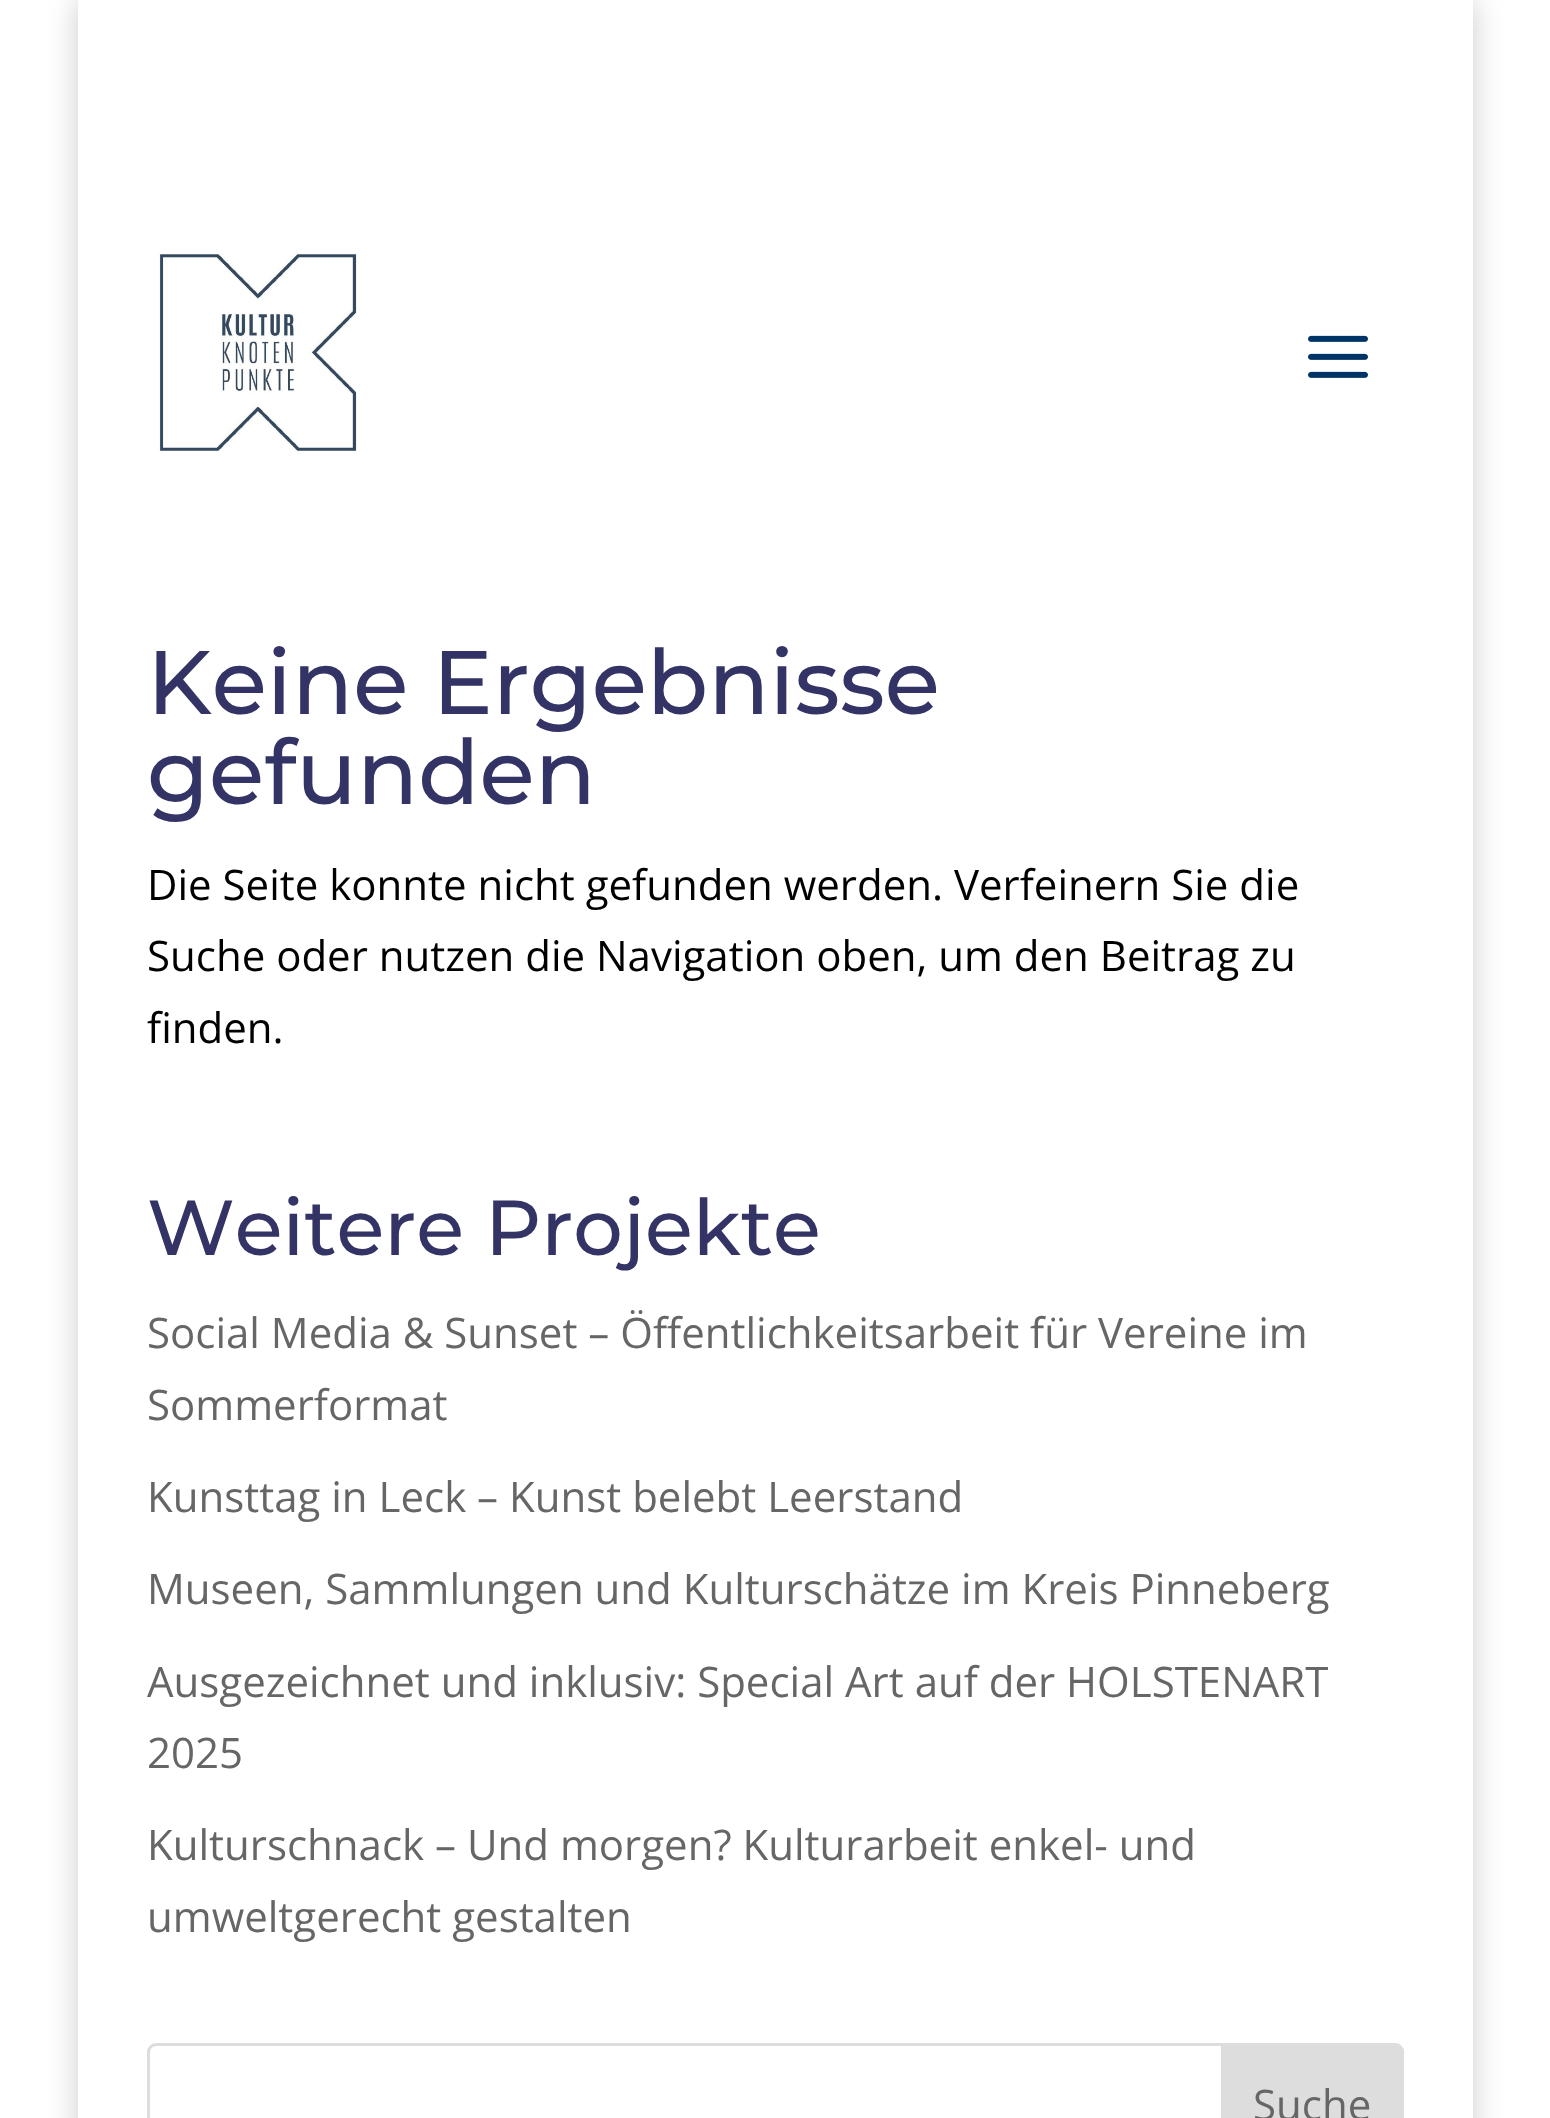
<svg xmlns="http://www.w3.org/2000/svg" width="1550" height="2118">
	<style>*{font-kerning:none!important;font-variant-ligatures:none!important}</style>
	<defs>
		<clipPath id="clip1"><path d="M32 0H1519V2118H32ZM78 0H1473V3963H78Z" clip-rule="evenodd" /></clipPath>
	</defs>
	<rect width="100%" height="100%" fill="#FFFFFF" />
	<g clip-path="url(#clip1)">
		<rect x="78" y="0" width="1395" height="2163" fill="#000000" fill-opacity="0.2" filter="blur(15px)" />
	</g>
	<image x="158" y="253" width="199" height="199" href="assets/img1.png" />
	<image x="1308" y="335" width="60" height="43" href="assets/img2.png" />
	<g font-family="Montserrat" font-size="90" font-weight="500" fill="#333366">
		<text x="147" y="714">Keine Ergebnisse</text>
		<text x="147" y="804">gefunden</text>
	</g>
	<g font-family="Open Sans" font-size="42" fill="#000000">
		<text x="147" y="900">Die Seite konnte nicht gefunden werden. Verfeinern Sie die</text>
		<text x="147" y="971">Suche oder nutzen die Navigation oben, um den Beitrag zu</text>
		<text x="147" y="1043">finden.</text>
	</g>
	<text x="147" y="1255" font-family="Montserrat" font-size="78" font-weight="500" fill="#333366">Weitere Projekte</text>
	<g font-family="Open Sans" font-size="42" fill="#666666">
		<text x="147" y="1348">Social Media &amp; Sunset – Öffentlichkeitsarbeit für Vereine im</text>
		<text x="147" y="1420">Sommerformat</text>
		<text x="147" y="1512">Kunsttag in Leck – Kunst belebt Leerstand</text>
		<text x="147" y="1604">Museen, Sammlungen und Kulturschätze im Kreis Pinneberg</text>
		<text x="147" y="1697">Ausgezeichnet und inklusiv: Special Art auf der HOLSTENART</text>
		<text x="147" y="1768">2025</text>
		<text x="147" y="1860">Kulturschnack – Und morgen? Kulturarbeit enkel- und</text>
		<text x="147" y="1932">umweltgerecht gestalten</text>
	</g>
	<rect x="148.5" y="2044.5" width="1254" height="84" rx="7.5" fill="none" stroke="#DDDDDD" stroke-width="3" />
	<path d="M1222.5 2044.5H1395C1399 2044.5 1402.5 2048 1402.5 2052V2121C1402.5 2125 1399 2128.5 1395 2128.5H1222.5Z" fill="#DDDDDD" stroke="#DDDDDD" stroke-width="3" />
	<text x="1253" y="2120" font-family="Open Sans" font-size="42" fill="#666666">Suche</text>
</svg>
